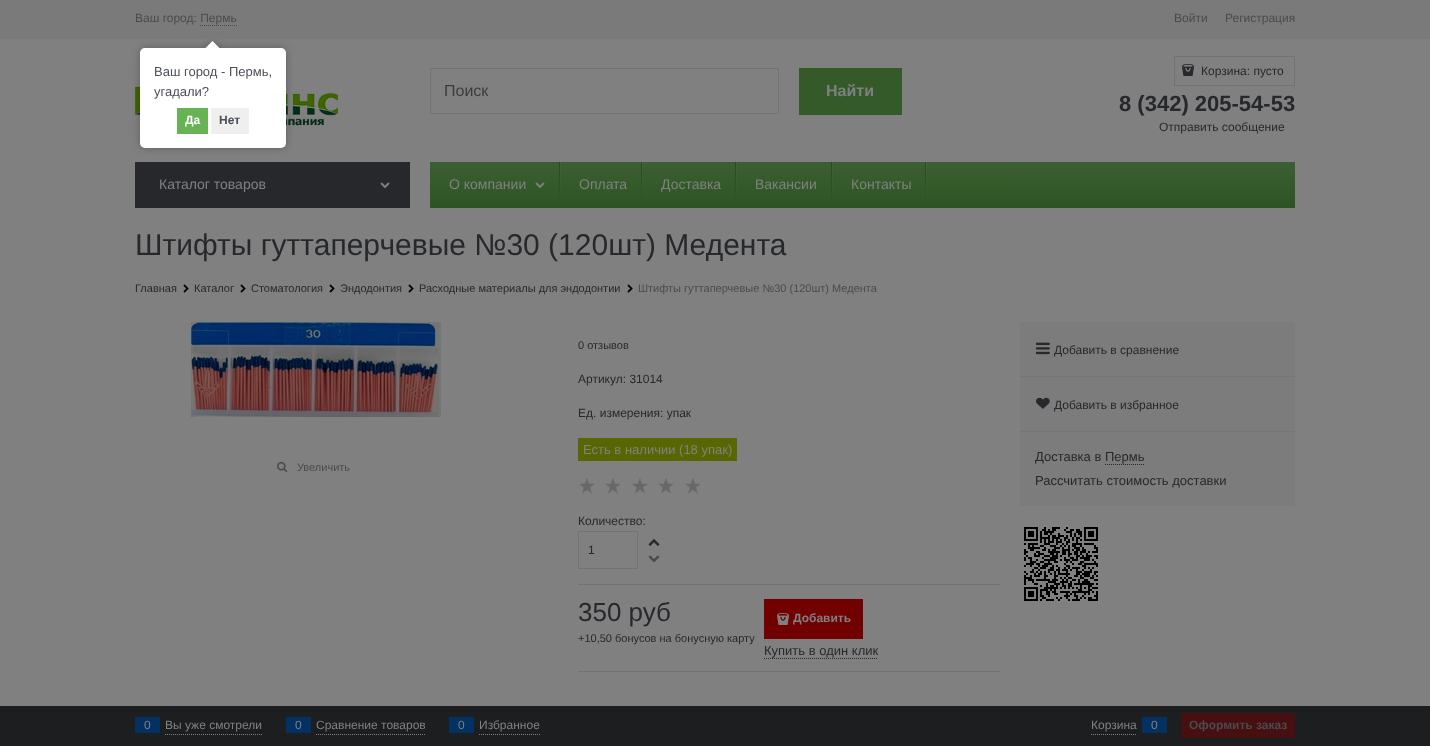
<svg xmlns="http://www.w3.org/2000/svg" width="1430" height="746">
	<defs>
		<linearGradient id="g1" gradientUnits="userSpaceOnUse" x1="863" y1="162" x2="863" y2="208"><stop offset="0" stop-color="#3C5E33" /><stop offset="0.5" stop-color="#345A2A" /><stop offset="1" stop-color="#2E5224" /></linearGradient>
		<linearGradient id="g2" gradientUnits="userSpaceOnUse" x1="561" y1="162" x2="561" y2="208"><stop offset="0" stop-color="#808080" stop-opacity="0.14" /><stop offset="0.72" stop-color="#808080" stop-opacity="0.02" /><stop offset="1" stop-color="#808080" stop-opacity="0" /></linearGradient>
		<linearGradient id="g3" gradientUnits="userSpaceOnUse" x1="560" y1="162" x2="560" y2="208"><stop offset="0" stop-color="#1D1D1D" stop-opacity="0.39" /><stop offset="0.17" stop-color="#1D1D1D" stop-opacity="0.33" /><stop offset="0.61" stop-color="#1D1D1D" stop-opacity="0.12" /><stop offset="0.96" stop-color="#1D1D1D" stop-opacity="0.01" /><stop offset="0.98" stop-color="#808080" stop-opacity="0.01" /><stop offset="1" stop-color="#808080" stop-opacity="0" /></linearGradient>
		<linearGradient id="g4" gradientUnits="userSpaceOnUse" x1="643" y1="162" x2="643" y2="208"><stop offset="0" stop-color="#808080" stop-opacity="0.14" /><stop offset="0.72" stop-color="#808080" stop-opacity="0.02" /><stop offset="1" stop-color="#808080" stop-opacity="0" /></linearGradient>
		<linearGradient id="g5" gradientUnits="userSpaceOnUse" x1="642" y1="162" x2="642" y2="208"><stop offset="0" stop-color="#1D1D1D" stop-opacity="0.39" /><stop offset="0.17" stop-color="#1D1D1D" stop-opacity="0.33" /><stop offset="0.61" stop-color="#1D1D1D" stop-opacity="0.12" /><stop offset="0.96" stop-color="#1D1D1D" stop-opacity="0.01" /><stop offset="0.98" stop-color="#808080" stop-opacity="0.01" /><stop offset="1" stop-color="#808080" stop-opacity="0" /></linearGradient>
		<linearGradient id="g6" gradientUnits="userSpaceOnUse" x1="737" y1="162" x2="737" y2="208"><stop offset="0" stop-color="#808080" stop-opacity="0.14" /><stop offset="0.72" stop-color="#808080" stop-opacity="0.02" /><stop offset="1" stop-color="#808080" stop-opacity="0" /></linearGradient>
		<linearGradient id="g7" gradientUnits="userSpaceOnUse" x1="736" y1="162" x2="736" y2="208"><stop offset="0" stop-color="#1D1D1D" stop-opacity="0.39" /><stop offset="0.17" stop-color="#1D1D1D" stop-opacity="0.33" /><stop offset="0.61" stop-color="#1D1D1D" stop-opacity="0.12" /><stop offset="0.96" stop-color="#1D1D1D" stop-opacity="0.01" /><stop offset="0.98" stop-color="#808080" stop-opacity="0.01" /><stop offset="1" stop-color="#808080" stop-opacity="0" /></linearGradient>
		<linearGradient id="g8" gradientUnits="userSpaceOnUse" x1="833" y1="162" x2="833" y2="208"><stop offset="0" stop-color="#808080" stop-opacity="0.14" /><stop offset="0.72" stop-color="#808080" stop-opacity="0.02" /><stop offset="1" stop-color="#808080" stop-opacity="0" /></linearGradient>
		<linearGradient id="g9" gradientUnits="userSpaceOnUse" x1="832" y1="162" x2="832" y2="208"><stop offset="0" stop-color="#1D1D1D" stop-opacity="0.39" /><stop offset="0.17" stop-color="#1D1D1D" stop-opacity="0.33" /><stop offset="0.61" stop-color="#1D1D1D" stop-opacity="0.12" /><stop offset="0.96" stop-color="#1D1D1D" stop-opacity="0.01" /><stop offset="0.98" stop-color="#808080" stop-opacity="0.01" /><stop offset="1" stop-color="#808080" stop-opacity="0" /></linearGradient>
		<linearGradient id="g10" gradientUnits="userSpaceOnUse" x1="927" y1="162" x2="927" y2="208"><stop offset="0" stop-color="#808080" stop-opacity="0.14" /><stop offset="0.72" stop-color="#808080" stop-opacity="0.02" /><stop offset="1" stop-color="#808080" stop-opacity="0" /></linearGradient>
		<linearGradient id="g11" gradientUnits="userSpaceOnUse" x1="926" y1="162" x2="926" y2="208"><stop offset="0" stop-color="#1D1D1D" stop-opacity="0.39" /><stop offset="0.17" stop-color="#1D1D1D" stop-opacity="0.33" /><stop offset="0.61" stop-color="#1D1D1D" stop-opacity="0.12" /><stop offset="0.96" stop-color="#1D1D1D" stop-opacity="0.01" /><stop offset="0.98" stop-color="#808080" stop-opacity="0.01" /><stop offset="1" stop-color="#808080" stop-opacity="0" /></linearGradient>
		<clipPath id="clip1"><rect x="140" y="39" width="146" height="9" /></clipPath>
		<clipPath id="clip2"><rect x="140" y="39" width="146" height="9" /></clipPath>
	</defs>
	<rect width="100%" height="100%" fill="#808080" />
	<rect x="0" y="0" width="1430" height="39" fill="#7A7A7A" />
	<text x="135" y="22" font-family="Liberation Sans" font-size="12" fill="#4A4B4E">Ваш город: Пермь</text>
	<path d="M200 25.5H237" fill="none" stroke="#4A4B4E" stroke-dasharray="1 1" />
	<g font-family="Liberation Sans" font-size="12" fill="#4A4B4E">
		<text x="1174" y="22">Войти</text>
		<text x="1225" y="22">Регистрация</text>
	</g>
	<image x="135" y="59" width="203" height="68" href="assets/img1.png" />
	<rect x="430.5" y="68.5" width="348" height="45" fill="none" stroke="#717272" />
	<text x="444" y="96" font-family="Liberation Sans" font-size="16" fill="#3B3B3B">Поиск</text>
	<rect x="799" y="68" width="103" height="47" fill="#345A2A" />
	<text x="826" y="96" font-family="Liberation Sans" font-size="16" font-weight="700" fill="#808080">Найти</text>
	<rect x="1174.5" y="56.5" width="120" height="29" fill="none" stroke="#717272" />
	<image x="1182" y="64" width="12" height="12" href="assets/img2.png" />
	<text x="1201" y="75" font-family="Liberation Sans" font-size="12" fill="#26282C">Корзина: пусто</text>
	<text x="1119" y="111" font-family="Liberation Sans" font-size="22" font-weight="700" fill="#26282C">8 (342) 205-54-53</text>
	<text x="1159" y="131" font-family="Liberation Sans" font-size="12" fill="#26282C">Отправить сообщение</text>
	<rect x="135" y="162" width="275" height="46" fill="#26282C" />
	<text x="159" y="189" font-family="Liberation Sans" font-size="14" fill="#808080">Каталог товаров</text>
	<image x="380" y="182" width="10" height="7" href="assets/img3.png" />
	<rect x="430" y="162" width="865" height="46" fill="url(#g1)" />
	<text x="449" y="189" font-family="Liberation Sans" font-size="14" fill="#808080">О компании</text>
	<image x="535" y="182" width="10" height="7" href="assets/img4.png" />
	<rect x="560" y="162" width="1" height="33" fill="url(#g2)" />
	<rect x="559" y="162" width="1" height="46" fill="url(#g3)" />
	<text x="579" y="189" font-family="Liberation Sans" font-size="14" fill="#808080">Оплата</text>
	<rect x="642" y="162" width="1" height="33" fill="url(#g4)" />
	<rect x="641" y="162" width="1" height="46" fill="url(#g5)" />
	<text x="661" y="189" font-family="Liberation Sans" font-size="14" fill="#808080">Доставка</text>
	<rect x="736" y="162" width="1" height="33" fill="url(#g6)" />
	<rect x="735" y="162" width="1" height="46" fill="url(#g7)" />
	<text x="755" y="189" font-family="Liberation Sans" font-size="14" fill="#808080">Вакансии</text>
	<rect x="832" y="162" width="1" height="33" fill="url(#g8)" />
	<rect x="831" y="162" width="1" height="46" fill="url(#g9)" />
	<text x="851" y="189" font-family="Liberation Sans" font-size="14" fill="#808080">Контакты</text>
	<rect x="926" y="162" width="1" height="33" fill="url(#g10)" />
	<rect x="925" y="162" width="1" height="46" fill="url(#g11)" />
	<text x="135" y="255" font-family="Liberation Sans" font-size="30" fill="#26282C">Штифты гуттаперчевые №30 (120шт) Медента</text>
	<text x="135" y="292" font-family="Liberation Sans" font-size="11" fill="#26282C">Главная</text>
	<image x="183" y="284" width="6" height="9" href="assets/img5.png" />
	<text x="194" y="292" font-family="Liberation Sans" font-size="11" fill="#26282C">Каталог</text>
	<image x="240" y="284" width="6" height="9" href="assets/img5.png" />
	<text x="251" y="292" font-family="Liberation Sans" font-size="11" fill="#26282C">Стоматология</text>
	<image x="329" y="284" width="6" height="9" href="assets/img5.png" />
	<text x="340" y="292" font-family="Liberation Sans" font-size="11" fill="#26282C">Эндодонтия</text>
	<image x="408" y="284" width="6" height="9" href="assets/img5.png" />
	<text x="419" y="292" font-family="Liberation Sans" font-size="11" fill="#26282C">Расходные материалы для эндодонтии</text>
	<image x="627" y="284" width="6" height="9" href="assets/img5.png" />
	<text x="638" y="292" font-family="Liberation Sans" font-size="11" fill="#4A4B4E">Штифты гуттаперчевые №30 (120шт) Медента</text>
	<image x="191" y="322" width="250" height="95" href="assets/img6.png" />
	<image x="277" y="461" width="11" height="12" href="assets/img7.png" />
	<text x="297" y="471" font-family="Liberation Sans" font-size="11" fill="#4A4B4E">Увеличить</text>
	<text x="578" y="349" font-family="Liberation Sans" font-size="11" fill="#26282C">0 отзывов</text>
	<g font-family="Liberation Sans" font-size="12" fill="#26282C">
		<text x="578" y="383">Артикул: 31014</text>
		<text x="578" y="417">Ед. измерения: упак</text>
	</g>
	<rect x="578" y="438" width="159" height="23" fill="#596702" />
	<text x="583" y="454" font-family="Liberation Sans" font-size="13" fill="#808080">Есть в наличии (18 упак)</text>
	<image x="579" y="478" width="16" height="16" href="assets/img8.png" />
	<image x="605" y="478" width="16" height="16" href="assets/img8.png" />
	<image x="632" y="478" width="16" height="16" href="assets/img8.png" />
	<image x="658" y="478" width="16" height="16" href="assets/img8.png" />
	<image x="685" y="478" width="16" height="16" href="assets/img8.png" />
	<text x="578" y="525" font-family="Liberation Sans" font-size="12" fill="#26282C">Количество:</text>
	<rect x="578.5" y="531.5" width="59" height="37" fill="none" stroke="#717272" />
	<text x="588" y="554" font-family="Liberation Sans" font-size="12" fill="#26282C">1</text>
	<image x="648" y="539" width="12" height="7" href="assets/img9.png" />
	<image x="648" y="555" width="12" height="8" href="assets/img10.png" />
	<rect x="578" y="584" width="422" height="1" fill="#717272" />
	<rect x="578" y="671" width="422" height="1" fill="#717272" />
	<text x="578" y="621" font-family="Liberation Sans" font-size="26" fill="#26282C">350 руб</text>
	<text x="578" y="642" font-family="Liberation Sans" font-size="11" fill="#26282C">+10,50 бонусов на бонусную карту</text>
	<rect x="764" y="599" width="99" height="40" fill="#710000" />
	<image x="777" y="613" width="12" height="12" href="assets/img11.png" />
	<text x="793" y="622" font-family="Liberation Sans" font-size="12" font-weight="700" fill="#808080">Добавить</text>
	<text x="764" y="655" font-family="Liberation Sans" font-size="13" fill="#26282C">Купить в один клик</text>
	<path d="M764 658.5H878" fill="none" stroke="#26282C" stroke-dasharray="1 1" />
	<rect x="1020" y="322" width="275" height="184" fill="#7C7C7C" />
	<rect x="1020" y="376" width="275" height="1" fill="#757575" />
	<image x="1036" y="342" width="14" height="13" href="assets/img12.png" />
	<text x="1054" y="354" font-family="Liberation Sans" font-size="12" fill="#26282C">Добавить в сравнение</text>
	<rect x="1020" y="431" width="275" height="1" fill="#757575" />
	<image x="1036" y="397" width="14" height="12" href="assets/img13.png" />
	<text x="1054" y="409" font-family="Liberation Sans" font-size="12" fill="#26282C">Добавить в избранное</text>
	<text x="1035" y="461" font-family="Liberation Sans" font-size="13" fill="#26282C">Доставка в Пермь</text>
	<path d="M1105 464.5H1144" fill="none" stroke="#26282C" stroke-dasharray="1 1" />
	<text x="1035" y="485" font-family="Liberation Sans" font-size="13" fill="#26282C">Рассчитать стоимость доставки</text>
	<image x="1024" y="527" width="74" height="74" href="assets/img14.png" />
	<rect x="0" y="706" width="1430" height="40" fill="#1C1E20" />
	<path d="M165 734.5H262" fill="none" stroke="#808080" stroke-dasharray="1 1" />
	<rect x="135" y="717" width="25" height="16" fill="#033161" />
	<g font-family="Liberation Sans" font-size="12" fill="#808080">
		<text x="144" y="729">0</text>
		<text x="165" y="729">Вы уже смотрели</text>
	</g>
	<path d="M316 734.5H425" fill="none" stroke="#808080" stroke-dasharray="1 1" />
	<rect x="286" y="717" width="25" height="16" fill="#033161" />
	<g font-family="Liberation Sans" font-size="12" fill="#808080">
		<text x="295" y="729">0</text>
		<text x="316" y="729">Сравнение товаров</text>
	</g>
	<path d="M479 734.5H540" fill="none" stroke="#808080" stroke-dasharray="1 1" />
	<rect x="449" y="717" width="25" height="16" fill="#033161" />
	<g font-family="Liberation Sans" font-size="12" fill="#808080">
		<text x="458" y="729">0</text>
		<text x="479" y="729">Избранное</text>
	</g>
	<path d="M1091 734.5H1137" fill="none" stroke="#808080" stroke-dasharray="1 1" />
	<text x="1091" y="729" font-family="Liberation Sans" font-size="12" fill="#808080">Корзина</text>
	<rect x="1142" y="717" width="25" height="16" fill="#033161" />
	<text x="1151" y="729" font-family="Liberation Sans" font-size="12" fill="#808080">0</text>
	<rect x="1181" y="713" width="114" height="25" fill="#470F10" />
	<text x="1189" y="729" font-family="Liberation Sans" font-size="12" font-weight="700" fill="#4A4B4E">Оформить заказ</text>
	<rect x="140" y="48" width="146" height="100" rx="5" fill="#000000" fill-opacity="0.25" filter="blur(4.5px)" />
	<rect x="140" y="48" width="146" height="100" rx="5" fill="#FFFFFF" />
	<g clip-path="url(#clip1)">
		<rect x="208" y="43" width="10" height="10" fill="#000000" fill-opacity="0.25" filter="blur(4.5px)" />
	</g>
	<g clip-path="url(#clip2)">
		<path d="M212.5 41L219.5 48L212.5 55L205.5 48Z" fill="#FFFFFF" />
	</g>
	<g font-family="Liberation Sans" font-size="13" fill="#4B4F58">
		<text x="154" y="76">Ваш город - Пермь,</text>
		<text x="154" y="96">угадали?</text>
	</g>
	<rect x="177" y="108" width="31" height="26" fill="#67B353" />
	<text x="185" y="124" font-family="Liberation Sans" font-size="12" font-weight="700" fill="#FFFFFF">Да</text>
	<rect x="211" y="108" width="38" height="26" fill="#EFEFEF" />
	<text x="219" y="124" font-family="Liberation Sans" font-size="12" font-weight="700" fill="#4B4F58">Нет</text>
</svg>
